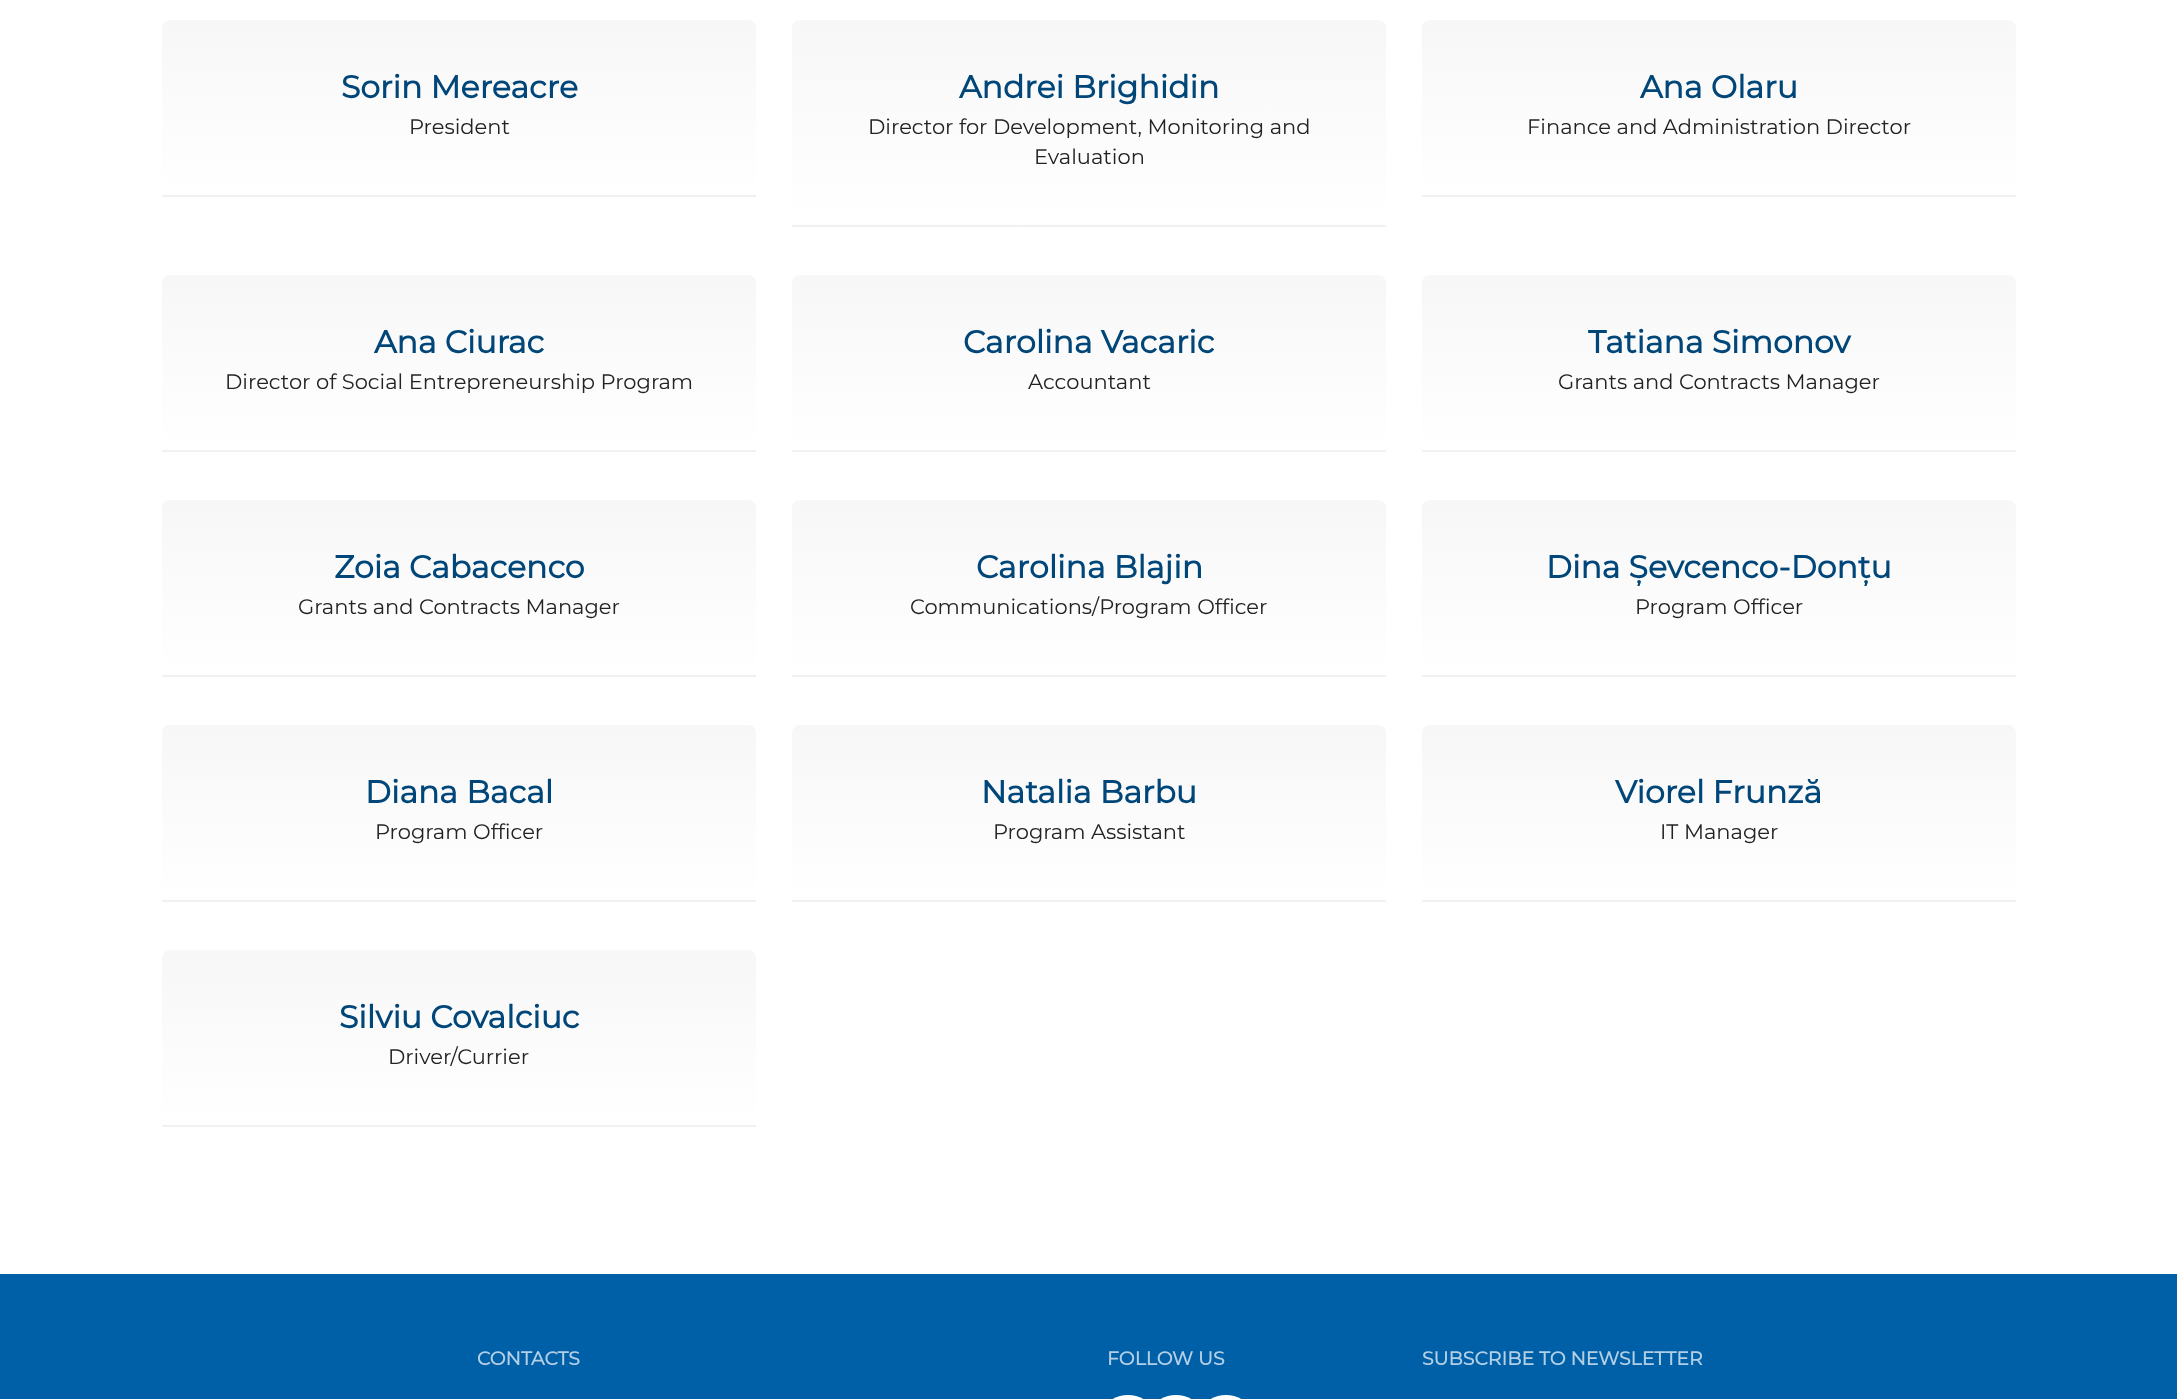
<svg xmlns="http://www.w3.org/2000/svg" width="2177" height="1399">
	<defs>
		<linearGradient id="g1" gradientUnits="userSpaceOnUse" x1="459" y1="19" x2="459" y2="195"><stop offset="0" stop-color="#F7F7F7" /><stop offset="1" stop-color="#FFFFFF" /></linearGradient>
		<linearGradient id="g2" gradientUnits="userSpaceOnUse" x1="1089" y1="19" x2="1089" y2="225"><stop offset="0" stop-color="#F7F7F7" /><stop offset="1" stop-color="#FFFFFF" /></linearGradient>
		<linearGradient id="g3" gradientUnits="userSpaceOnUse" x1="1719" y1="19" x2="1719" y2="195"><stop offset="0" stop-color="#F7F7F7" /><stop offset="1" stop-color="#FFFFFF" /></linearGradient>
		<linearGradient id="g4" gradientUnits="userSpaceOnUse" x1="459" y1="274" x2="459" y2="450"><stop offset="0" stop-color="#F7F7F7" /><stop offset="1" stop-color="#FFFFFF" /></linearGradient>
		<linearGradient id="g5" gradientUnits="userSpaceOnUse" x1="1089" y1="274" x2="1089" y2="450"><stop offset="0" stop-color="#F7F7F7" /><stop offset="1" stop-color="#FFFFFF" /></linearGradient>
		<linearGradient id="g6" gradientUnits="userSpaceOnUse" x1="1719" y1="274" x2="1719" y2="450"><stop offset="0" stop-color="#F7F7F7" /><stop offset="1" stop-color="#FFFFFF" /></linearGradient>
		<linearGradient id="g7" gradientUnits="userSpaceOnUse" x1="459" y1="500" x2="459" y2="675"><stop offset="0" stop-color="#F7F7F7" /><stop offset="1" stop-color="#FFFFFF" /></linearGradient>
		<linearGradient id="g8" gradientUnits="userSpaceOnUse" x1="1089" y1="500" x2="1089" y2="675"><stop offset="0" stop-color="#F7F7F7" /><stop offset="1" stop-color="#FFFFFF" /></linearGradient>
		<linearGradient id="g9" gradientUnits="userSpaceOnUse" x1="1719" y1="500" x2="1719" y2="675"><stop offset="0" stop-color="#F7F7F7" /><stop offset="1" stop-color="#FFFFFF" /></linearGradient>
		<linearGradient id="g10" gradientUnits="userSpaceOnUse" x1="459" y1="725" x2="459" y2="900"><stop offset="0" stop-color="#F7F7F7" /><stop offset="1" stop-color="#FFFFFF" /></linearGradient>
		<linearGradient id="g11" gradientUnits="userSpaceOnUse" x1="1089" y1="725" x2="1089" y2="900"><stop offset="0" stop-color="#F7F7F7" /><stop offset="1" stop-color="#FFFFFF" /></linearGradient>
		<linearGradient id="g12" gradientUnits="userSpaceOnUse" x1="1719" y1="725" x2="1719" y2="900"><stop offset="0" stop-color="#F7F7F7" /><stop offset="1" stop-color="#FFFFFF" /></linearGradient>
		<linearGradient id="g13" gradientUnits="userSpaceOnUse" x1="459" y1="950" x2="459" y2="1125"><stop offset="0" stop-color="#F7F7F7" /><stop offset="1" stop-color="#FFFFFF" /></linearGradient>
	</defs>
	<rect width="100%" height="100%" fill="#FFFFFF" />
	<path d="M170 20H748C752.5 20 756 23.5 756 28V195H162V28C162 23.5 165.5 20 170 20Z" fill="url(#g1)" />
	<rect x="162" y="195" width="594" height="2" fill="#F1F1F1" />
	<text x="341" y="98" font-family="Montserrat" font-size="31.5" font-weight="700" fill="#014679">Sorin Mereacre</text>
	<text x="409" y="134" font-family="Montserrat" font-size="21" font-weight="100" fill="#232323">President</text>
	<path d="M800 20H1378C1382.5 20 1386 23.5 1386 28V225H792V28C792 23.5 795.5 20 800 20Z" fill="url(#g2)" />
	<rect x="792" y="225" width="594" height="2" fill="#F1F1F1" />
	<text x="959" y="98" font-family="Montserrat" font-size="31.5" font-weight="700" fill="#014679">Andrei Brighidin</text>
	<g font-family="Montserrat" font-size="21" font-weight="100" fill="#232323">
		<text x="868" y="134">Director for Development, Monitoring and</text>
		<text x="1034" y="164">Evaluation</text>
	</g>
	<path d="M1430 20H2008C2012.5 20 2016 23.5 2016 28V195H1422V28C1422 23.5 1425.5 20 1430 20Z" fill="url(#g3)" />
	<rect x="1422" y="195" width="594" height="2" fill="#F1F1F1" />
	<text x="1640" y="98" font-family="Montserrat" font-size="31.5" font-weight="700" fill="#014679">Ana Olaru</text>
	<text x="1527" y="134" font-family="Montserrat" font-size="21" font-weight="100" fill="#232323">Finance and Administration Director</text>
	<path d="M170 275H748C752.5 275 756 278.5 756 283V450H162V283C162 278.5 165.5 275 170 275Z" fill="url(#g4)" />
	<rect x="162" y="450" width="594" height="2" fill="#F1F1F1" />
	<text x="374" y="353" font-family="Montserrat" font-size="31.5" font-weight="700" fill="#014679">Ana Ciurac</text>
	<text x="225" y="389" font-family="Montserrat" font-size="21" font-weight="100" fill="#232323">Director of Social Entrepreneurship Program</text>
	<path d="M800 275H1378C1382.5 275 1386 278.5 1386 283V450H792V283C792 278.5 795.5 275 800 275Z" fill="url(#g5)" />
	<rect x="792" y="450" width="594" height="2" fill="#F1F1F1" />
	<text x="963" y="353" font-family="Montserrat" font-size="31.5" font-weight="700" fill="#014679">Carolina Vacaric</text>
	<text x="1028" y="389" font-family="Montserrat" font-size="21" font-weight="100" fill="#232323">Accountant</text>
	<path d="M1430 275H2008C2012.5 275 2016 278.5 2016 283V450H1422V283C1422 278.5 1425.5 275 1430 275Z" fill="url(#g6)" />
	<rect x="1422" y="450" width="594" height="2" fill="#F1F1F1" />
	<text x="1588" y="353" font-family="Montserrat" font-size="31.5" font-weight="700" fill="#014679">Tatiana Simonov</text>
	<text x="1558" y="389" font-family="Montserrat" font-size="21" font-weight="100" fill="#232323">Grants and Contracts Manager</text>
	<path d="M170 500H748C752.5 500 756 503.5 756 508V675H162V508C162 503.5 165.5 500 170 500Z" fill="url(#g7)" />
	<rect x="162" y="675" width="594" height="2" fill="#F1F1F1" />
	<text x="334" y="578" font-family="Montserrat" font-size="31.5" font-weight="700" fill="#014679">Zoia Cabacenco</text>
	<text x="298" y="614" font-family="Montserrat" font-size="21" font-weight="100" fill="#232323">Grants and Contracts Manager</text>
	<path d="M800 500H1378C1382.5 500 1386 503.5 1386 508V675H792V508C792 503.5 795.5 500 800 500Z" fill="url(#g8)" />
	<rect x="792" y="675" width="594" height="2" fill="#F1F1F1" />
	<text x="976" y="578" font-family="Montserrat" font-size="31.5" font-weight="700" fill="#014679">Carolina Blajin</text>
	<text x="910" y="614" font-family="Montserrat" font-size="21" font-weight="100" fill="#232323">Communications/Program Officer</text>
	<path d="M1430 500H2008C2012.5 500 2016 503.5 2016 508V675H1422V508C1422 503.5 1425.5 500 1430 500Z" fill="url(#g9)" />
	<rect x="1422" y="675" width="594" height="2" fill="#F1F1F1" />
	<text x="1546" y="578" font-family="Montserrat" font-size="31.5" font-weight="700" fill="#014679">Dina Șevcenco-Donțu</text>
	<text x="1635" y="614" font-family="Montserrat" font-size="21" font-weight="100" fill="#232323">Program Officer</text>
	<path d="M170 725H748C752.5 725 756 728.5 756 733V900H162V733C162 728.5 165.5 725 170 725Z" fill="url(#g10)" />
	<rect x="162" y="900" width="594" height="2" fill="#F1F1F1" />
	<text x="365" y="803" font-family="Montserrat" font-size="31.5" font-weight="700" fill="#014679">Diana Bacal</text>
	<text x="375" y="839" font-family="Montserrat" font-size="21" font-weight="100" fill="#232323">Program Officer</text>
	<path d="M800 725H1378C1382.5 725 1386 728.5 1386 733V900H792V733C792 728.5 795.5 725 800 725Z" fill="url(#g11)" />
	<rect x="792" y="900" width="594" height="2" fill="#F1F1F1" />
	<text x="981" y="803" font-family="Montserrat" font-size="31.5" font-weight="700" fill="#014679">Natalia Barbu</text>
	<text x="993" y="839" font-family="Montserrat" font-size="21" font-weight="100" fill="#232323">Program Assistant</text>
	<path d="M1430 725H2008C2012.5 725 2016 728.5 2016 733V900H1422V733C1422 728.5 1425.5 725 1430 725Z" fill="url(#g12)" />
	<rect x="1422" y="900" width="594" height="2" fill="#F1F1F1" />
	<text x="1615" y="803" font-family="Montserrat" font-size="31.5" font-weight="700" fill="#014679">Viorel Frunză</text>
	<text x="1660" y="839" font-family="Montserrat" font-size="21" font-weight="100" fill="#232323">IT Manager</text>
	<path d="M170 950H748C752.5 950 756 953.5 756 958V1125H162V958C162 953.5 165.5 950 170 950Z" fill="url(#g13)" />
	<rect x="162" y="1125" width="594" height="2" fill="#F1F1F1" />
	<text x="339" y="1028" font-family="Montserrat" font-size="31.5" font-weight="700" fill="#014679">Silviu Covalciuc</text>
	<text x="388" y="1064" font-family="Montserrat" font-size="21" font-weight="100" fill="#232323">Driver/Currier</text>
	<rect x="0" y="1274" width="2177" height="125" fill="#0060A7" />
	<g font-family="Montserrat" font-size="18.9" font-weight="700" fill="#B3CFE5">
		<text x="477" y="1365">CONTACTS</text>
		<text x="1107" y="1365">FOLLOW US</text>
	</g>
	<rect x="1107" y="1395" width="42" height="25" rx="21" fill="#FFFFFF" />
	<rect x="1155" y="1395" width="42" height="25" rx="21" fill="#FFFFFF" />
	<rect x="1205" y="1395" width="42" height="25" rx="21" fill="#FFFFFF" />
	<text x="1422" y="1365" font-family="Montserrat" font-size="18.9" font-weight="700" fill="#B3CFE5">SUBSCRIBE TO NEWSLETTER</text>
</svg>
